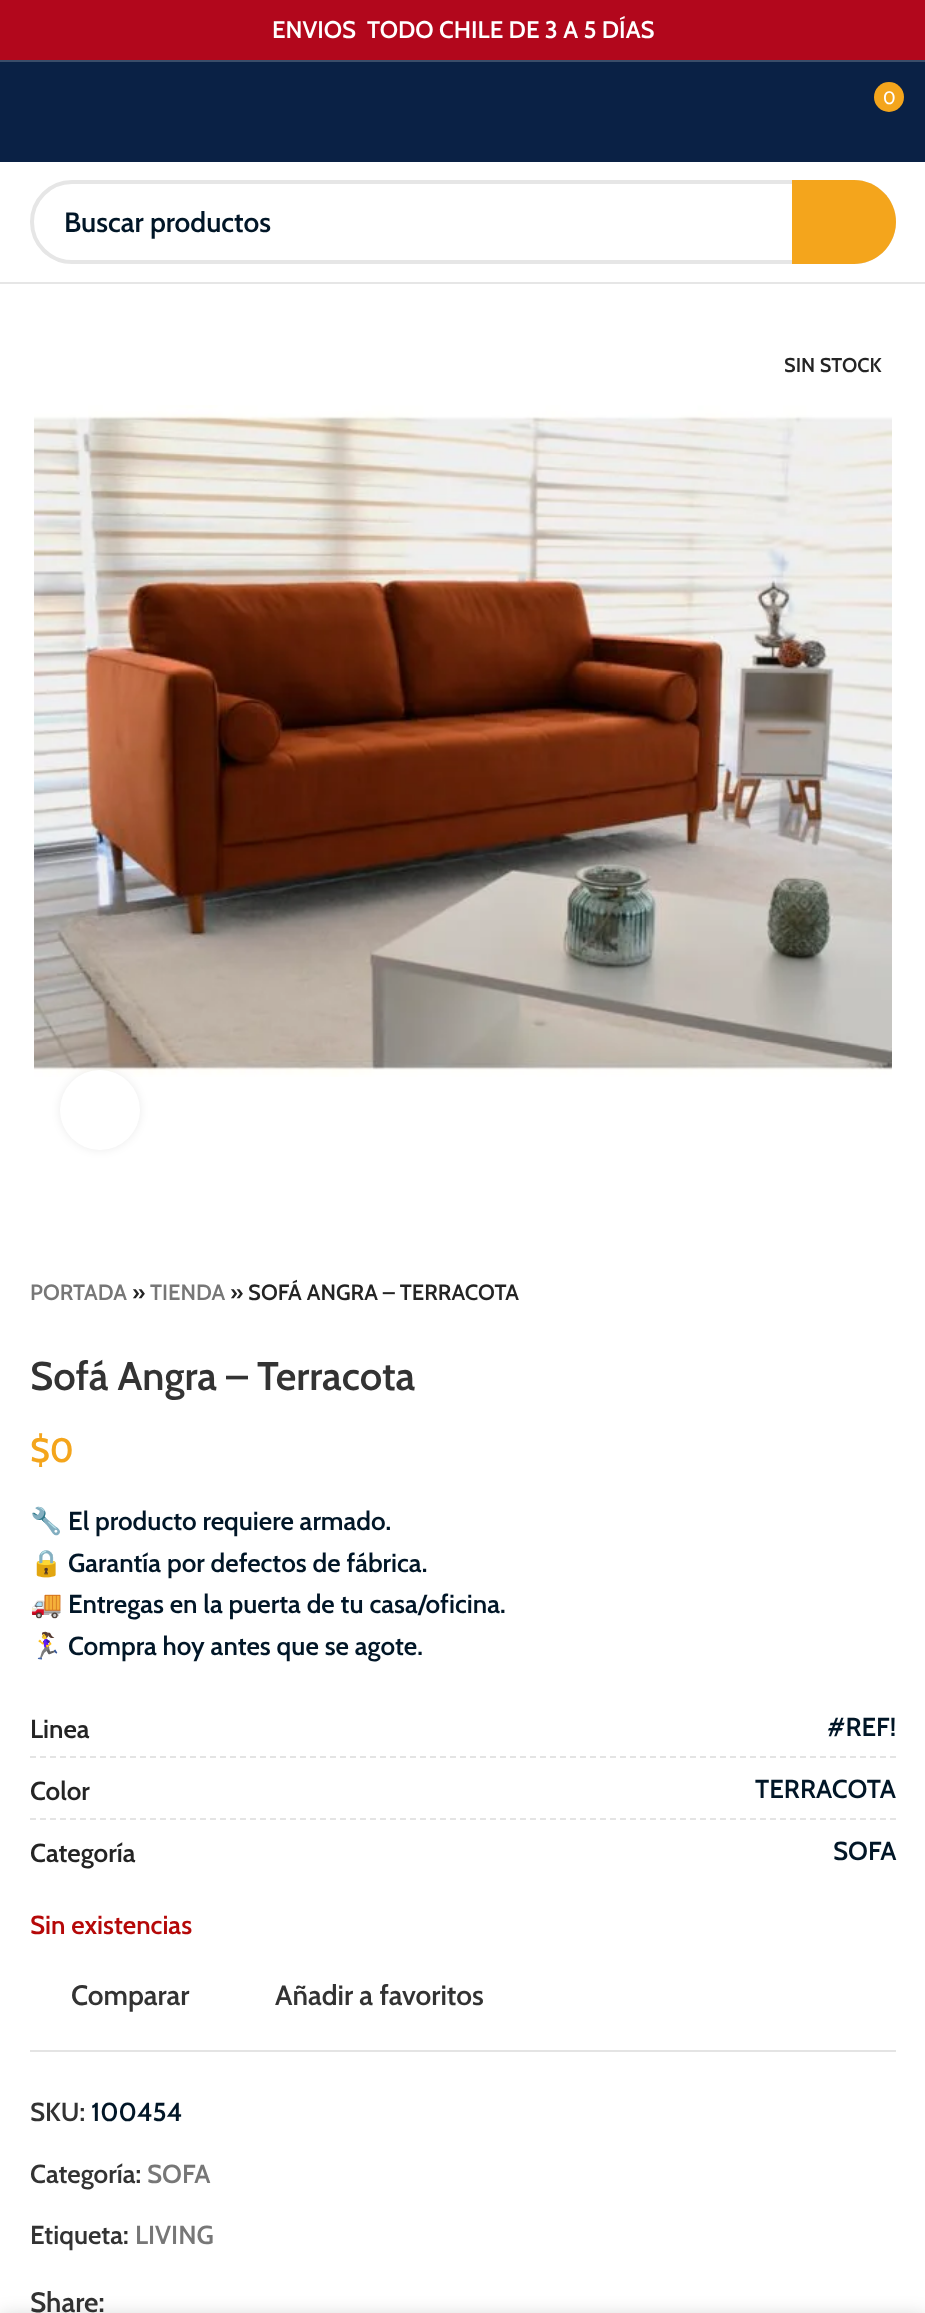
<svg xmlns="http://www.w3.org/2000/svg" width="925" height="2313">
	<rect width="100%" height="100%" fill="#FFFFFF" />
	<rect x="0" y="0" width="925" height="60" fill="#B2071C" />
	<rect x="0" y="60" width="925" height="2" fill="#3A4D69" />
	<g font-family="Cabin" font-size="24" font-weight="600" fill="#FFFFFF">
		<text x="272" y="38">ENVIOS</text>
		<text x="367" y="38">TODO CHILE DE 3 A 5 DÍAS</text>
	</g>
	<rect x="0" y="62" width="925" height="100" fill="#0A2145" />
	<circle cx="889" cy="97" r="15" fill="#F4A51C" />
	<text x="883" y="104" font-family="Cabin" font-size="18" fill="#FFFFFF">0</text>
	<rect x="0" y="282" width="925" height="2" fill="#E6E6E6" />
	<rect x="32" y="182" width="862" height="80" rx="40" fill="none" stroke="#E6E6E6" stroke-width="4" />
	<text x="64" y="232" font-family="Cabin" font-size="28" font-weight="600" fill="#011627">Buscar productos</text>
	<path d="M792 180H854C877 180 896 199 896 222C896 245 877 264 854 264H792Z" fill="#F4A51C" />
	<text x="784" y="372" font-family="Cabin" font-size="20" font-weight="600" fill="#242424">SIN STOCK</text>
	<image x="34" y="405" width="858" height="672" href="assets/img1.png" />
	<rect x="60" y="1070" width="80" height="80" rx="40" fill="#000000" fill-opacity="0.08" filter="blur(5px)" />
	<circle cx="100" cy="1110" r="40" fill="#FFFFFF" />
	<text x="30" y="1300" font-family="Cabin" font-size="22" font-weight="600" fill="#777777">PORTADA</text>
	<text x="132" y="1300" font-family="Cabin" font-size="22" font-weight="600" fill="#242424">»</text>
	<text x="150" y="1300" font-family="Cabin" font-size="22" font-weight="600" fill="#777777">TIENDA</text>
	<text x="230" y="1300" font-family="Cabin" font-size="22" font-weight="600" fill="#242424">» SOFÁ ANGRA – TERRACOTA</text>
	<text x="30" y="1390" font-family="Cabin" font-size="40" font-weight="600" fill="#333333">Sofá Angra – Terracota</text>
	<text x="30" y="1462" font-family="Cabin" font-size="34" font-weight="600" fill="#F4A51C">$0</text>
	<text x="30" y="1530" font-family="Noto Color Emoji" font-size="26" font-weight="700" fill="#011627">🔧</text>
	<text x="68" y="1530" font-family="Cabin" font-size="26" font-weight="600" fill="#011627">El producto requiere armado.</text>
	<text x="30" y="1572" font-family="Noto Color Emoji" font-size="26" font-weight="700" fill="#011627">🔒</text>
	<text x="68" y="1572" font-family="Cabin" font-size="26" font-weight="600" fill="#011627">Garantía por defectos de fábrica.</text>
	<text x="30" y="1613" font-family="Noto Color Emoji" font-size="26" font-weight="700" fill="#011627">🚚</text>
	<text x="68" y="1613" font-family="Cabin" font-size="26" font-weight="600" fill="#011627">Entregas en la puerta de tu casa/oficina.</text>
	<text x="30" y="1655" font-family="Noto Color Emoji" font-size="26" font-weight="700" fill="#011627">🏃‍♀️</text>
	<text x="68" y="1655" font-family="Cabin" font-size="26" font-weight="600" fill="#011627">Compra hoy antes que se agote.</text>
	<path d="M30 1757H896" fill="none" stroke="#E4E4E4" stroke-width="2" stroke-dasharray="6 4" />
	<text x="30" y="1738" font-family="Cabin" font-size="26" font-weight="600" fill="#242424">Linea</text>
	<text x="827" y="1736" font-family="Cabin" font-size="26" font-weight="600" fill="#011627">#REF!</text>
	<path d="M30 1819H896" fill="none" stroke="#E4E4E4" stroke-width="2" stroke-dasharray="6 4" />
	<text x="30" y="1800" font-family="Cabin" font-size="26" font-weight="600" fill="#242424">Color</text>
	<text x="755" y="1798" font-family="Cabin" font-size="26" font-weight="600" fill="#011627">TERRACOTA</text>
	<text x="30" y="1862" font-family="Cabin" font-size="26" font-weight="600" fill="#242424">Categoría</text>
	<text x="833" y="1860" font-family="Cabin" font-size="26" font-weight="600" fill="#011627">SOFA</text>
	<text x="30" y="1934" font-family="Cabin" font-size="26" font-weight="600" fill="#B50808">Sin existencias</text>
	<g font-family="Cabin" font-size="28" font-weight="600" fill="#333333">
		<text x="71" y="2005">Comparar</text>
		<text x="275" y="2005">Añadir a favoritos</text>
	</g>
	<rect x="30" y="2050" width="866" height="2" fill="#E4E4E4" />
	<text x="30" y="2121" font-family="Cabin" font-size="26" font-weight="600" fill="#333333">SKU:</text>
	<text x="91" y="2121" font-family="Cabin" font-size="26" font-weight="600" fill="#011627">100454</text>
	<text x="30" y="2183" font-family="Cabin" font-size="26" font-weight="600" fill="#333333">Categoría:</text>
	<text x="147" y="2183" font-family="Cabin" font-size="26" font-weight="600" fill="#777777">SOFA</text>
	<text x="30" y="2244" font-family="Cabin" font-size="26" font-weight="600" fill="#333333">Etiqueta:</text>
	<text x="135" y="2244" font-family="Cabin" font-size="26" font-weight="600" fill="#777777">LIVING</text>
	<text x="30" y="2312" font-family="Cabin" font-size="28" font-weight="600" fill="#333333">Share:</text>
	<rect x="0" y="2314" width="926" height="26" fill="#000000" fill-opacity="0.14" filter="blur(9px)" />
</svg>
